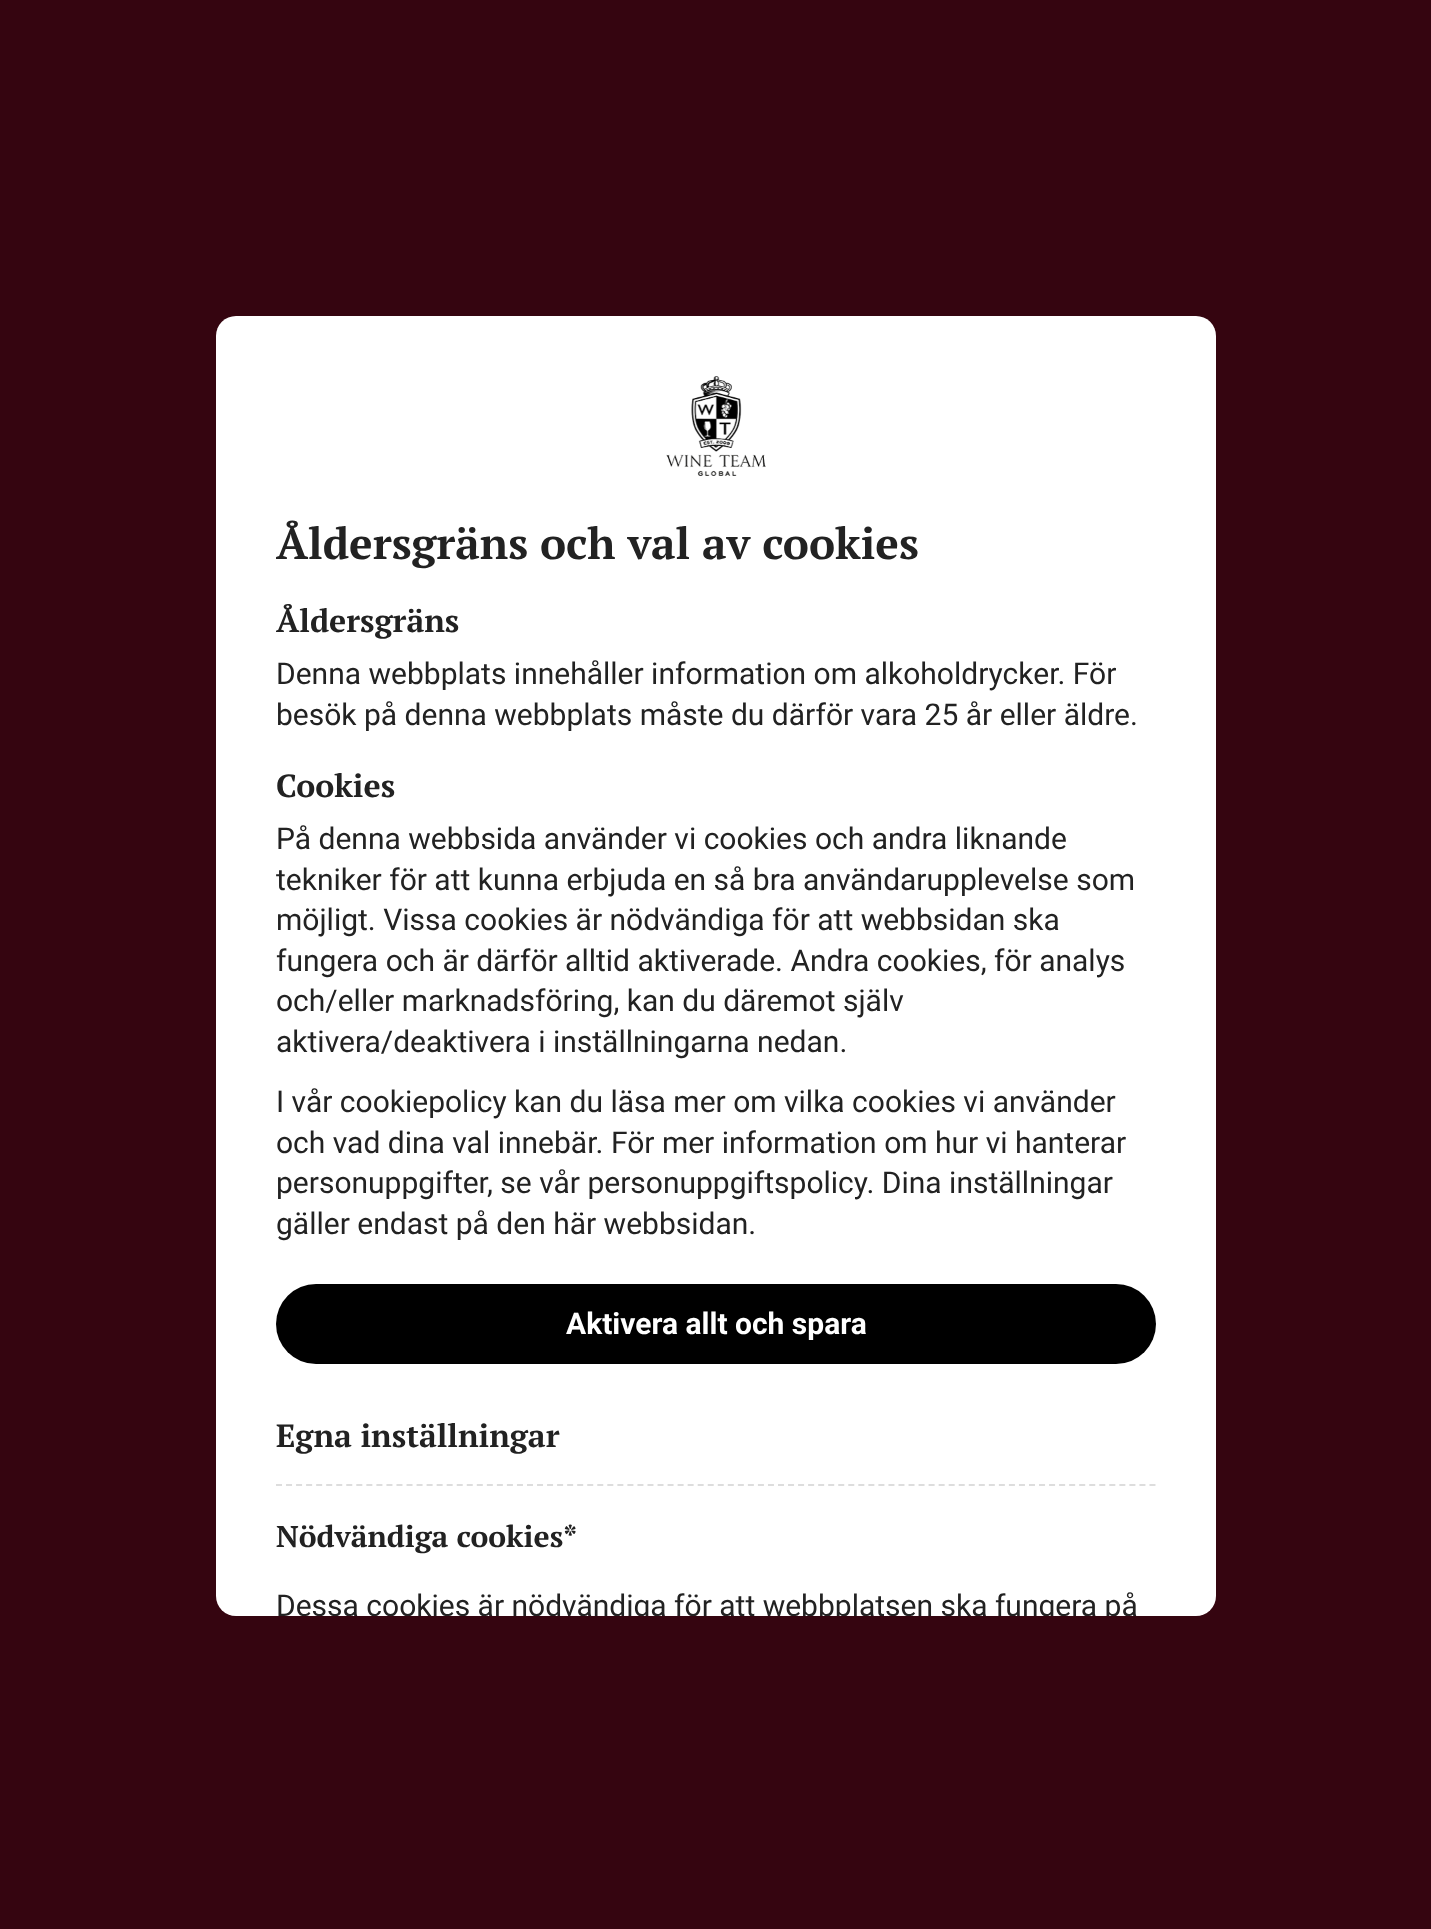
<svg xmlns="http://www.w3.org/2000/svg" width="1431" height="1929">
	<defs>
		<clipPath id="clip1"><rect x="216" y="316" width="1000" height="1300" rx="20" /></clipPath>
	</defs>
	<rect width="100%" height="100%" fill="#350510" />
	<rect x="216" y="316" width="1000" height="1300" rx="20" fill="#FFFFFF" />
	<image x="666" y="376" width="100" height="100" href="assets/img1.png" />
	<text x="276" y="559" font-family="PT Serif" font-size="44" font-weight="700" fill="#222222">Åldersgräns och val av cookies</text>
	<text x="276" y="632" font-family="PT Serif" font-size="32" font-weight="700" fill="#222222">Åldersgräns</text>
	<g font-family="Roboto" font-size="30" fill="#222222">
		<text x="276" y="684">Denna webbplats innehåller information om alkoholdrycker. För</text>
		<text x="276" y="725">besök på denna webbplats måste du därför vara 25 år eller äldre.</text>
	</g>
	<text x="276" y="797" font-family="PT Serif" font-size="32" font-weight="700" fill="#222222">Cookies</text>
	<g font-family="Roboto" font-size="30" fill="#222222">
		<text x="276" y="849">På denna webbsida använder vi cookies och andra liknande</text>
		<text x="276" y="890">tekniker för att kunna erbjuda en så bra användarupplevelse som</text>
		<text x="276" y="930">möjligt. Vissa cookies är nödvändiga för att webbsidan ska</text>
		<text x="276" y="971">fungera och är därför alltid aktiverade. Andra cookies, för analys</text>
		<text x="276" y="1011">och/eller marknadsföring, kan du däremot själv</text>
		<text x="276" y="1052">aktivera/deaktivera i inställningarna nedan.</text>
		<text x="276" y="1112">I vår cookiepolicy kan du läsa mer om vilka cookies vi använder</text>
		<text x="276" y="1153">och vad dina val innebär. För mer information om hur vi hanterar</text>
		<text x="276" y="1193">personuppgifter, se vår personuppgiftspolicy. Dina inställningar</text>
		<text x="276" y="1234">gäller endast på den här webbsidan.</text>
	</g>
	<rect x="276" y="1284" width="880" height="80" rx="40" fill="#000000" />
	<text x="566" y="1334" font-family="Roboto" font-size="30" font-weight="700" fill="#FFFFFF">Aktivera allt och spara</text>
	<text x="276" y="1447" font-family="PT Serif" font-size="32" font-weight="700" fill="#222222">Egna inställningar</text>
	<path d="M276 1485H1156" fill="none" stroke="#DDDDDD" stroke-width="2" stroke-dasharray="6 4.04" />
	<text x="276" y="1547" font-family="PT Serif" font-size="30" font-weight="700" fill="#222222">Nödvändiga cookies*</text>
	<g clip-path="url(#clip1)">
		<text x="276" y="1616" font-family="Roboto" font-size="30" fill="#222222">Dessa cookies är nödvändiga för att webbplatsen ska fungera på</text>
	</g>
</svg>
